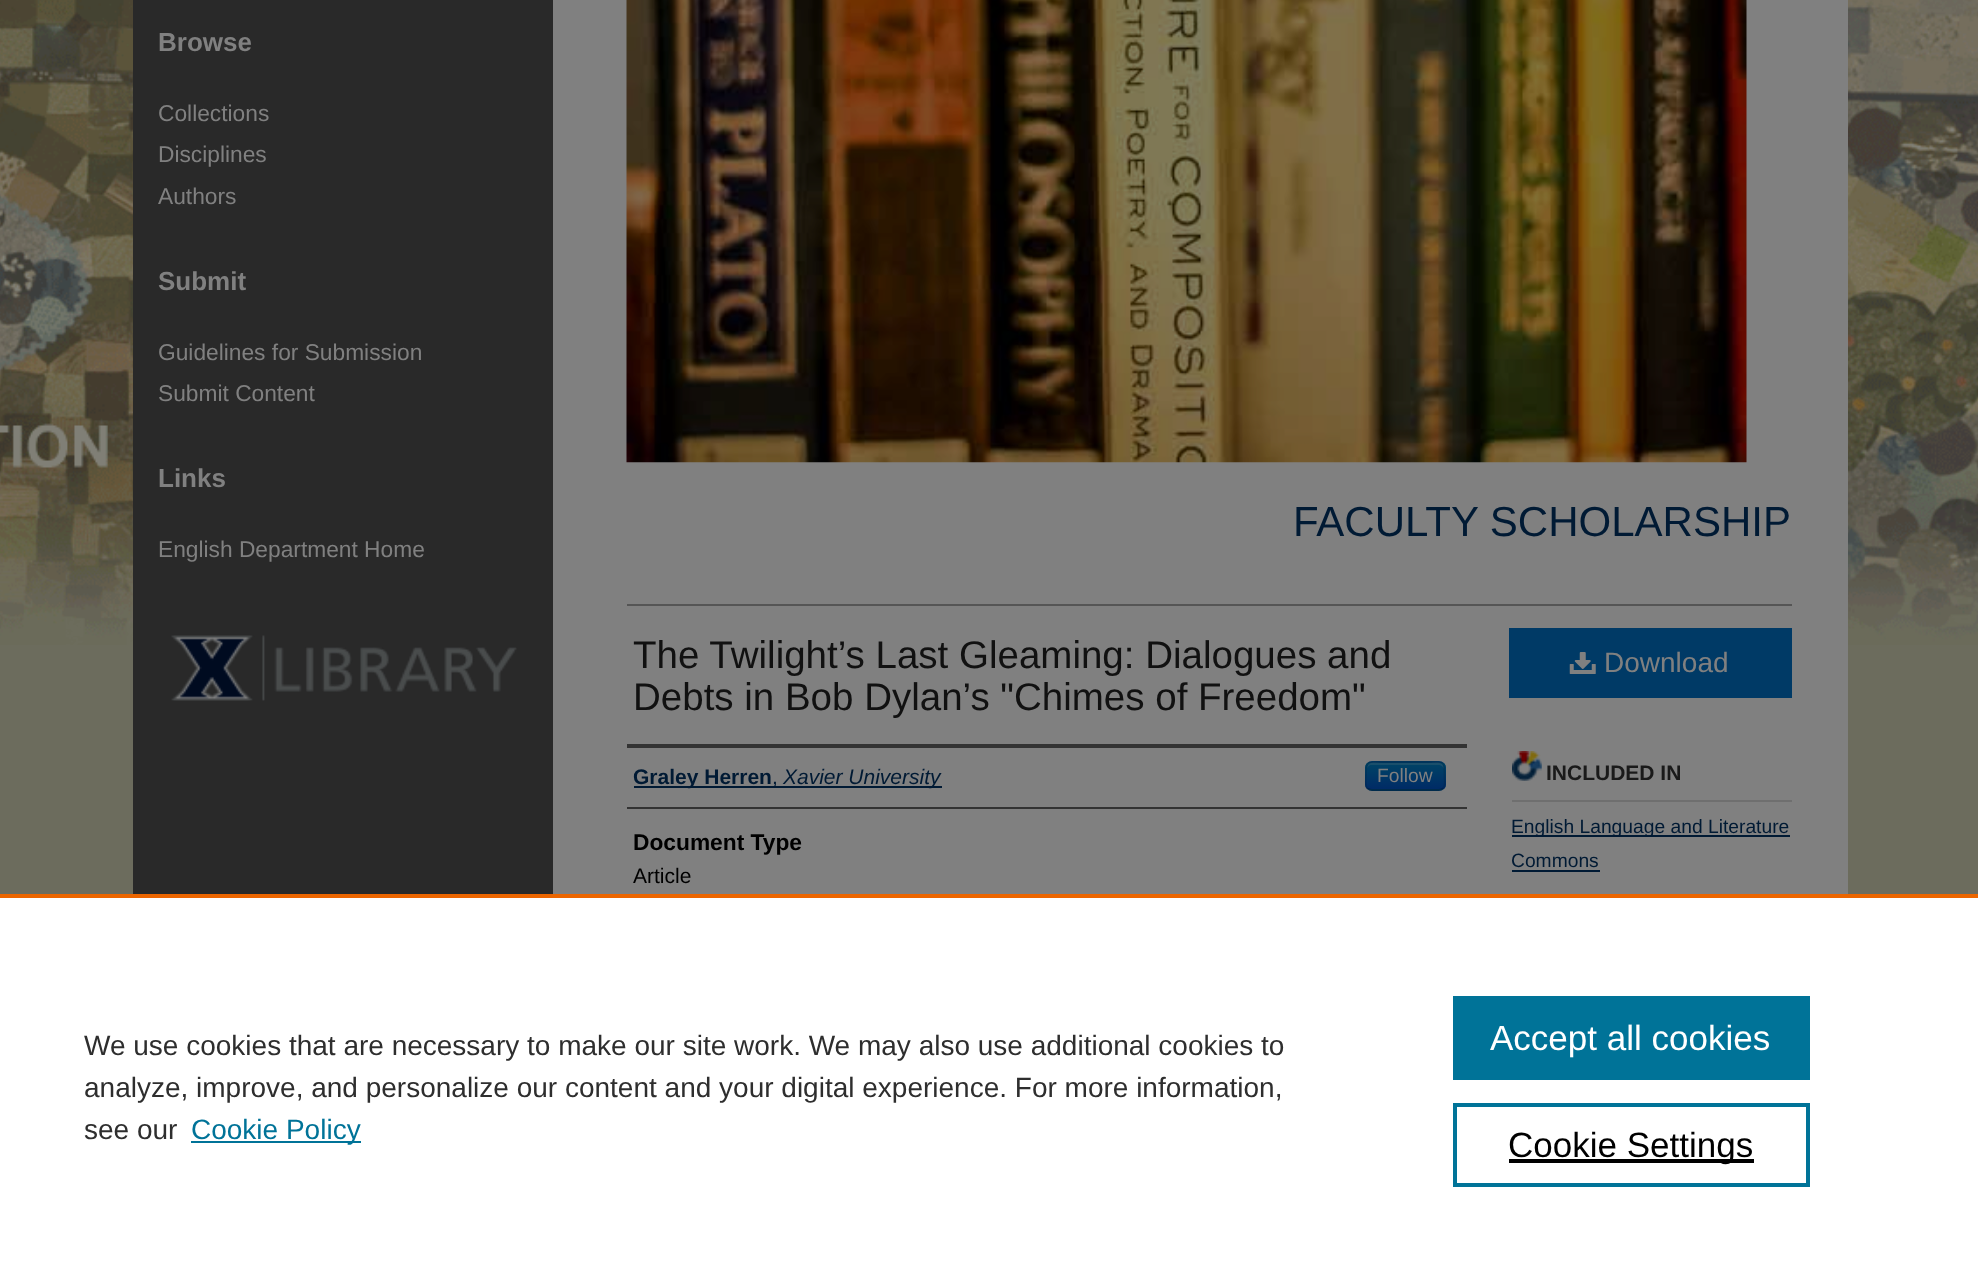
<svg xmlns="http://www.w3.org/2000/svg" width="1978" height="1279">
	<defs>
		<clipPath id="clip1"><rect x="1365" y="761" width="81" height="30" rx="7" /></clipPath>
		<linearGradient id="g1" gradientUnits="userSpaceOnUse" x1="1405" y1="763" x2="1405" y2="789"><stop offset="0" stop-color="#004466" /><stop offset="1" stop-color="#002B66" /></linearGradient>
	</defs>
	<rect width="100%" height="100%" fill="#6C6C5D" />
	<image x="0" y="0" width="1978" height="645" href="assets/img1.png" />
	<rect x="133" y="0" width="420" height="894" fill="#292929" />
	<rect x="553" y="0" width="1295" height="894" fill="#808080" />
	<text x="158" y="51" font-family="Liberation Sans" font-size="26" font-weight="700" fill="#808080">Browse</text>
	<g font-family="Liberation Sans" font-size="22.75" fill="#808080">
		<text x="158" y="121">Collections</text>
		<text x="158" y="162">Disciplines</text>
		<text x="158" y="204">Authors</text>
	</g>
	<text x="158" y="290" font-family="Liberation Sans" font-size="26" font-weight="700" fill="#808080">Submit</text>
	<g font-family="Liberation Sans" font-size="22.75" fill="#808080">
		<text x="158" y="360">Guidelines for Submission</text>
		<text x="158" y="401">Submit Content</text>
	</g>
	<text x="158" y="487" font-family="Liberation Sans" font-size="26" font-weight="700" fill="#808080">Links</text>
	<text x="158" y="557" font-family="Liberation Sans" font-size="22.75" fill="#808080">English Department Home</text>
	<image x="171" y="635" width="346" height="66" href="assets/img2.png" />
	<image x="626" y="0" width="1121" height="463" href="assets/img3.png" />
	<text x="1293" y="536" font-family="Liberation Sans" font-size="42" fill="#001A34">FACULTY SCHOLARSHIP</text>
	<rect x="627" y="604" width="1165" height="2" fill="#555555" />
	<g font-family="Liberation Sans" font-size="38.5" fill="#111111">
		<text x="633" y="668">The Twilight’s Last Gleaming: Dialogues and</text>
		<text x="633" y="710">Debts in Bob Dylan’s "Chimes of Freedom"</text>
	</g>
	<rect x="627" y="744" width="840" height="4" fill="#333333" />
	<rect x="627" y="807" width="840" height="2" fill="#333333" />
	<rect x="634" y="786" width="308" height="2" fill="#001A34" />
	<text x="633" y="784" font-family="Liberation Sans" font-size="21" font-weight="700" fill="#001A34">Graley Herren</text>
	<text x="772" y="784" font-family="Liberation Sans" font-size="21" fill="#001A34">,</text>
	<text x="783" y="784" font-family="Liberation Sans" font-size="21" font-style="italic" fill="#001A34">Xavier University</text>
	<rect x="1365" y="761" width="81" height="30" rx="7" fill="#003A66" />
	<g clip-path="url(#clip1)">
		<rect x="1365" y="763" width="81" height="26" fill="url(#g1)" />
	</g>
	<path d="M1372 765H1438C1441 765 1444 767 1444 770C1444 760 1436 763 1428 763H1383C1375 763 1367 760 1367 770C1367 767 1369 765 1372 765Z" fill="#808080" fill-opacity="0.2" />
	<path d="M1443 788.5C1441.5 789.5 1440 790 1438.5 790H1372C1370.5 790 1369 789.5 1367.5 788.5" fill="none" stroke="#000000" stroke-opacity="0.25" stroke-width="1.8" />
	<path d="M1367.5 788.5C1364.5 785.5 1366 780 1366 776C1366 760.5 1366.5 762 1383 762H1427.5C1444 762 1444.5 760.5 1444.5 776C1444.5 780 1446 785.5 1443 788.5" fill="none" stroke="#000000" stroke-opacity="0.1" stroke-width="1.8" />
	<text x="1377" y="782" font-family="Liberation Sans" font-size="19.25" fill="#808080">Follow</text>
	<text x="633" y="850" font-family="Liberation Sans" font-size="22.75" font-weight="700" fill="#000000">Document Type</text>
	<text x="633" y="883" font-family="Liberation Sans" font-size="21" fill="#000000">Article</text>
	<rect x="1509" y="628" width="283" height="70" fill="#003A66" />
	<image x="1569" y="652" width="27" height="22" href="assets/img4.png" />
	<text x="1604" y="672" font-family="Liberation Sans" font-size="28" fill="#808080">Download</text>
	<image x="1512" y="751" width="30" height="30" href="assets/img5.png" />
	<rect x="1512" y="800" width="280" height="2" fill="#6F6F6F" />
	<text x="1546" y="780" font-family="Liberation Sans" font-size="21" font-weight="700" fill="#1A1A1A">INCLUDED IN</text>
	<rect x="1512" y="835" width="278" height="2" fill="#001A34" />
	<g font-family="Liberation Sans" font-size="19.25" fill="#001A34">
		<text x="1511" y="833">English Language and Literature</text>
		<text x="1511" y="867">Commons</text>
	</g>
	<rect x="1512" y="870" width="88" height="2" fill="#001A34" />
	<rect x="0" y="898" width="1978" height="381" fill="#FFFFFF" />
	<rect x="0" y="894" width="1978" height="4" fill="#EB6500" />
	<g font-family="Liberation Sans" font-size="28" fill="#2E2E2E">
		<text x="84" y="1055">We use cookies that are necessary to make our site work. We may also use additional cookies to</text>
		<text x="84" y="1097">analyze, improve, and personalize our content and your digital experience. For more information,</text>
		<text x="84" y="1139">see our</text>
	</g>
	<rect x="191" y="1141" width="170" height="2" fill="#007398" />
	<text x="191" y="1139" font-family="Liberation Sans" font-size="28" fill="#007398">Cookie Policy</text>
	<rect x="1453" y="996" width="357" height="84" fill="#007398" />
	<text x="1490" y="1050" font-family="Liberation Sans" font-size="35" fill="#FFFFFF">Accept all cookies</text>
	<rect x="1455" y="1105" width="353" height="80" fill="none" stroke="#007398" stroke-width="4" />
	<rect x="1509" y="1159" width="245" height="4" fill="#000000" />
	<text x="1508" y="1157" font-family="Liberation Sans" font-size="35" fill="#000000">Cookie Settings</text>
</svg>
